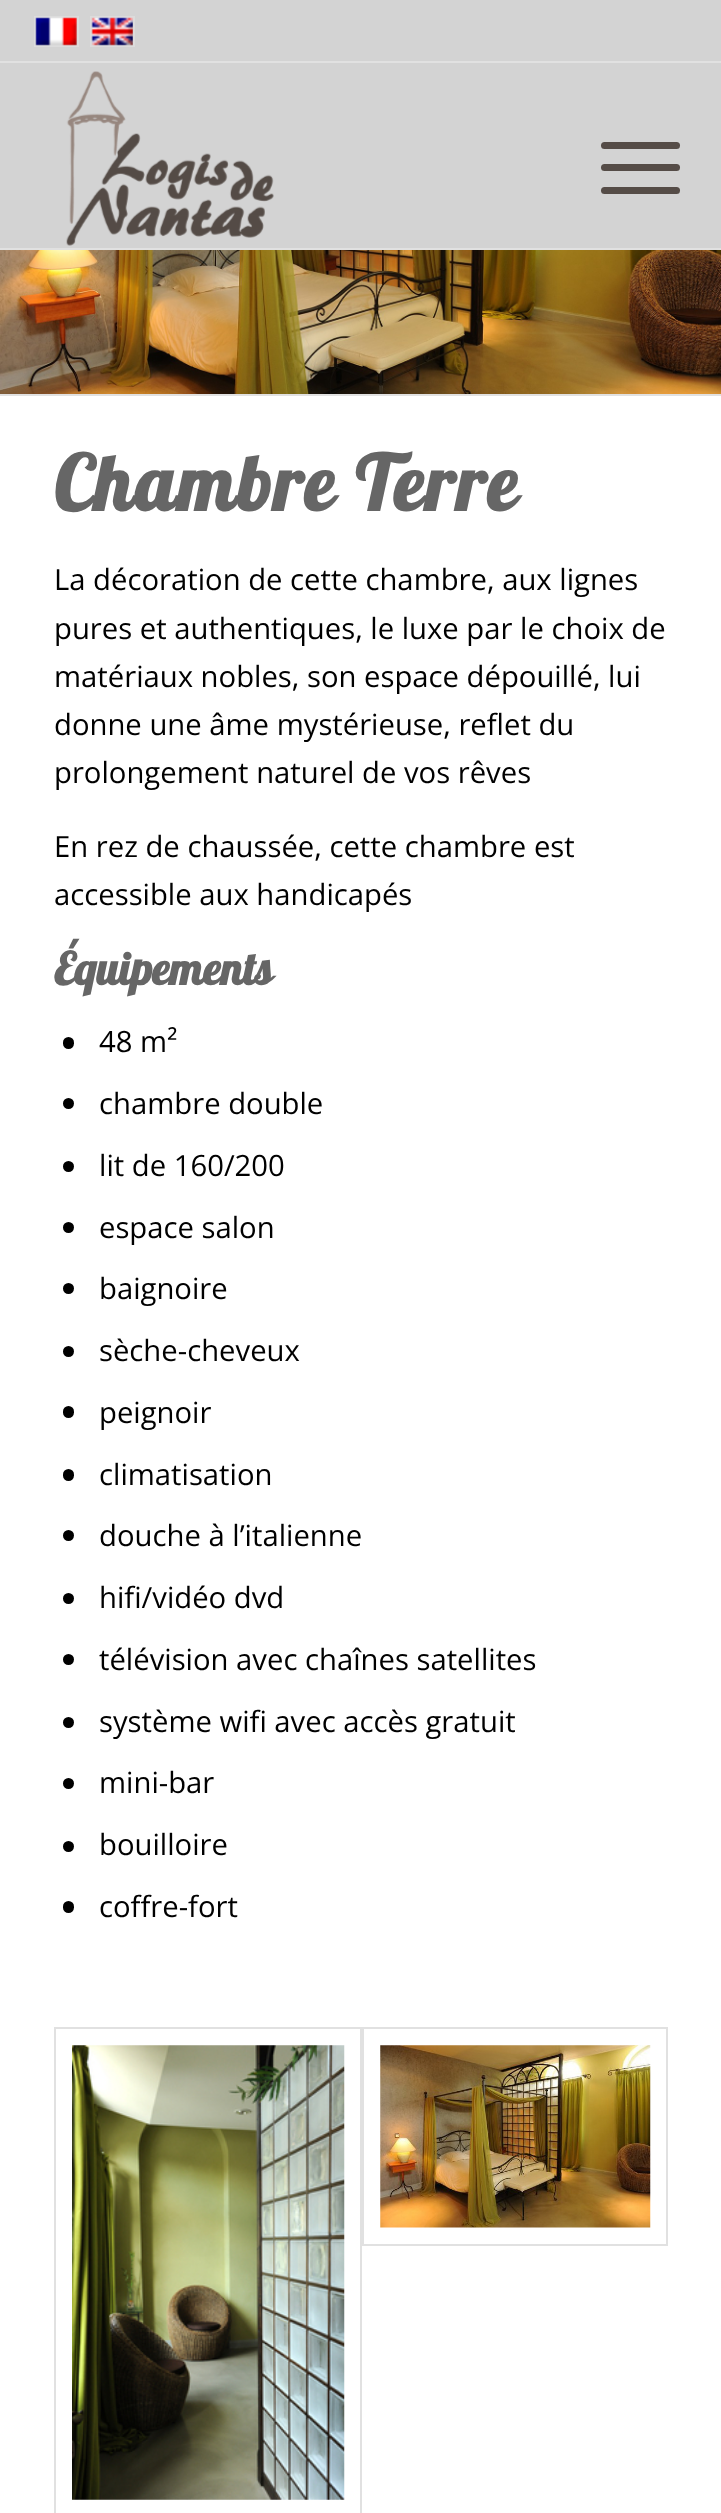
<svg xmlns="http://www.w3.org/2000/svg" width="721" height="2513">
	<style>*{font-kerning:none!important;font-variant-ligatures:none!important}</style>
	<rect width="100%" height="100%" fill="#D3D3D3" />
	<rect x="0" y="248" width="721" height="2" fill="#E1E1E1" />
	<rect x="0" y="61" width="721" height="2" fill="#E1E1E1" />
	<rect x="35" y="17" width="43" height="29" fill="none" stroke="#DCDCDC" stroke-width="2" />
	<image x="35" y="17" width="42" height="29" href="assets/img1.png" />
	<rect x="91" y="17" width="43" height="29" fill="none" stroke="#DCDCDC" stroke-width="2" />
	<image x="91" y="17" width="42" height="29" href="assets/img2.png" />
	<image x="66" y="71" width="208" height="175" href="assets/img3.png" />
	<rect x="601" y="164" width="79" height="7" rx="3.5" fill="#554C47" />
	<rect x="601" y="142" width="79" height="7" rx="3.5" fill="#554C47" />
	<rect x="601" y="187" width="79" height="7" rx="3.5" fill="#554C47" />
	<image x="0" y="250" width="721" height="144" href="assets/img4.png" />
	<rect x="0" y="396" width="721" height="2117" fill="#FFFFFF" />
	<rect x="0" y="394" width="721" height="2" fill="#E1E1E1" />
	<text x="54" y="511" font-family="Lobster" font-size="76.5" font-weight="700" letter-spacing="2.25" fill="#666666">Chambre Terre</text>
	<g font-family="Open Sans" font-size="29.25" fill="#000000">
		<text x="54" y="590">La décoration de cette chambre, aux lignes</text>
		<text x="54" y="639">pures et authentiques, le luxe par le choix de</text>
		<text x="54" y="687">matériaux nobles, son espace dépouillé, lui</text>
		<text x="54" y="735">donne une âme mystérieuse, reflet du</text>
		<text x="54" y="783">prolongement naturel de vos rêves</text>
		<text x="54" y="857">En rez de chaussée, cette chambre est</text>
		<text x="54" y="905">accessible aux handicapés</text>
	</g>
	<text x="54" y="985" font-family="Lobster" font-size="45" font-weight="700" fill="#666666">Équipements</text>
	<rect x="63" y="1037" width="11" height="12" rx="5.5" fill="#000000" />
	<text x="99" y="1052" font-family="Open Sans" font-size="29.25" fill="#000000">48 m²</text>
	<circle cx="68.5" cy="1103.5" r="5.5" fill="#000000" />
	<text x="99" y="1114" font-family="Open Sans" font-size="29.25" fill="#000000">chambre double</text>
	<circle cx="68.5" cy="1166.5" r="5.5" fill="#000000" />
	<text x="99" y="1176" font-family="Open Sans" font-size="29.25" fill="#000000">lit de 160/200</text>
	<circle cx="68.5" cy="1227.5" r="5.5" fill="#000000" />
	<text x="99" y="1238" font-family="Open Sans" font-size="29.25" fill="#000000">espace salon</text>
	<circle cx="68.5" cy="1288.5" r="5.5" fill="#000000" />
	<text x="99" y="1299" font-family="Open Sans" font-size="29.25" fill="#000000">baignoire</text>
	<circle cx="68.5" cy="1351.5" r="5.5" fill="#000000" />
	<text x="99" y="1361" font-family="Open Sans" font-size="29.25" fill="#000000">sèche-cheveux</text>
	<rect x="63" y="1406" width="11" height="12" rx="5.5" fill="#000000" />
	<text x="99" y="1423" font-family="Open Sans" font-size="29.25" fill="#000000">peignoir</text>
	<rect x="63" y="1469" width="11" height="12" rx="5.5" fill="#000000" />
	<text x="99" y="1485" font-family="Open Sans" font-size="29.25" fill="#000000">climatisation</text>
	<circle cx="68.5" cy="1535.5" r="5.5" fill="#000000" />
	<text x="99" y="1546" font-family="Open Sans" font-size="29.25" fill="#000000">douche à l’italienne</text>
	<circle cx="68.5" cy="1598.5" r="5.5" fill="#000000" />
	<text x="99" y="1608" font-family="Open Sans" font-size="29.25" fill="#000000">hifi/vidéo dvd</text>
	<circle cx="68.5" cy="1659.5" r="5.5" fill="#000000" />
	<text x="99" y="1670" font-family="Open Sans" font-size="29.25" fill="#000000">télévision avec chaînes satellites</text>
	<circle cx="68.5" cy="1722.5" r="5.5" fill="#000000" />
	<text x="99" y="1732" font-family="Open Sans" font-size="29.25" fill="#000000">système wifi avec accès gratuit</text>
	<circle cx="68.5" cy="1783.5" r="5.5" fill="#000000" />
	<text x="99" y="1793" font-family="Open Sans" font-size="29.25" fill="#000000">mini-bar</text>
	<circle cx="68.5" cy="1846.5" r="5.5" fill="#000000" />
	<text x="99" y="1855" font-family="Open Sans" font-size="29.25" fill="#000000">bouilloire</text>
	<rect x="63" y="1901" width="11" height="12" rx="5.5" fill="#000000" />
	<text x="99" y="1917" font-family="Open Sans" font-size="29.25" fill="#000000">coffre-fort</text>
	<rect x="55" y="2028" width="306" height="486" fill="none" stroke="#E1E1E1" stroke-width="2" />
	<image x="72" y="2045" width="273" height="455" href="assets/img5.png" />
	<rect x="363" y="2028" width="304" height="217" fill="none" stroke="#E1E1E1" stroke-width="2" />
	<image x="380" y="2045" width="271" height="183" href="assets/img6.png" />
</svg>
